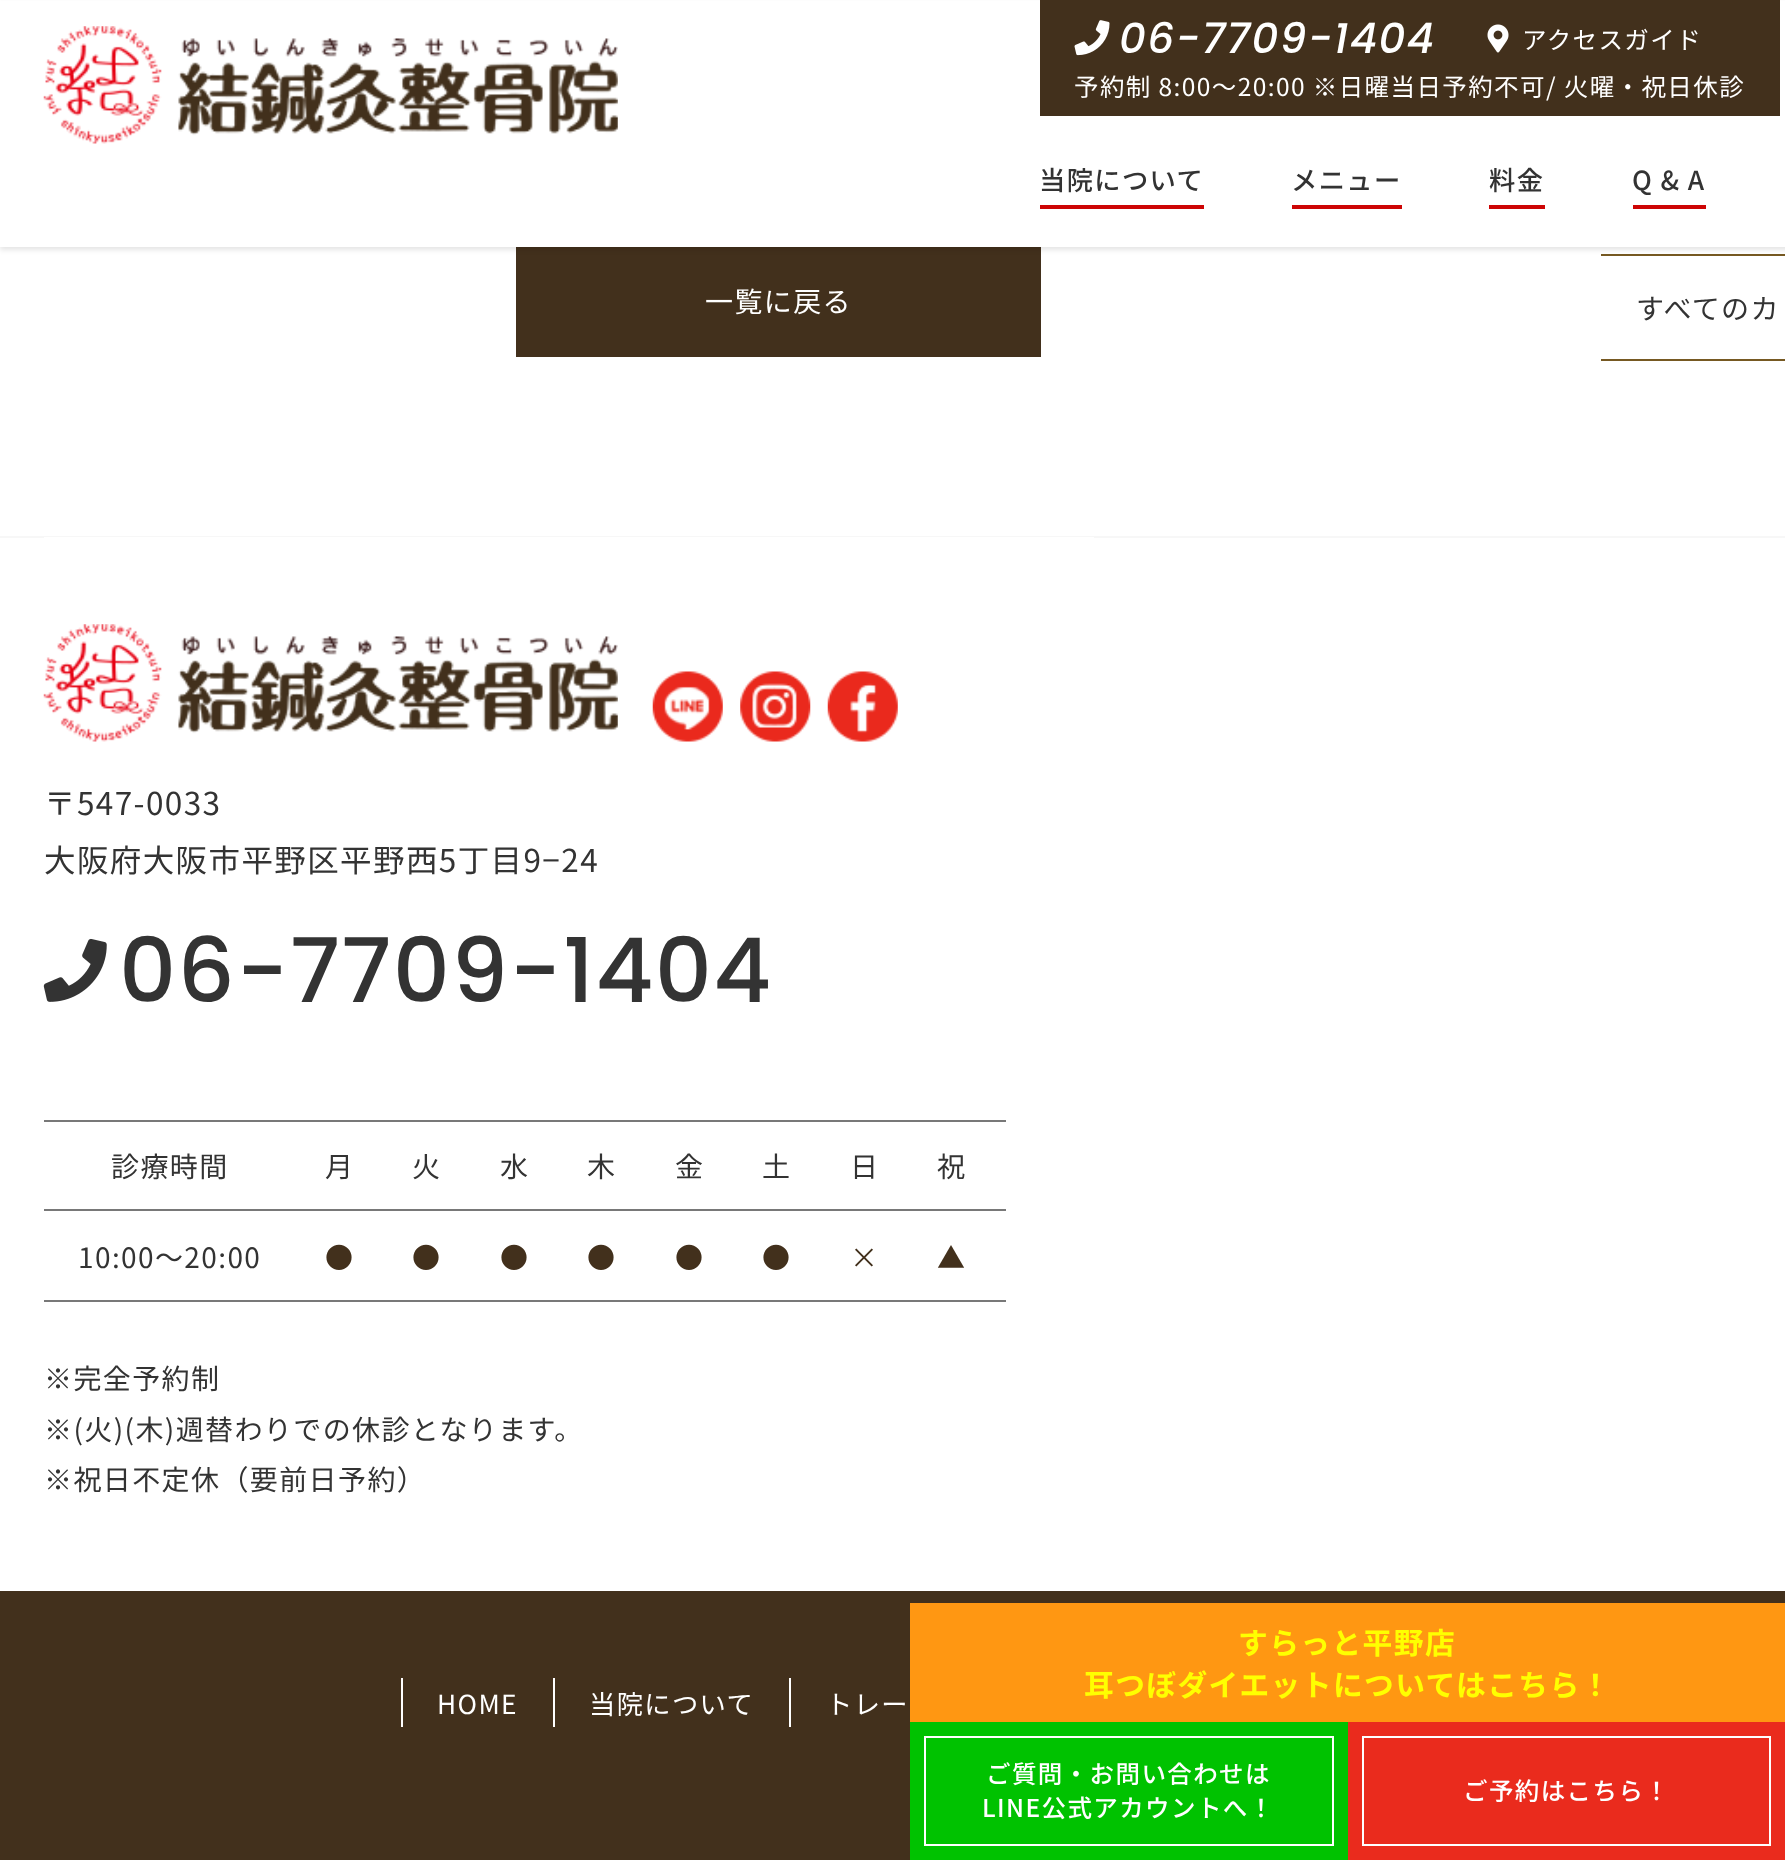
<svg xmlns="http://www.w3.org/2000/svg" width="1785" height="1860">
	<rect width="100%" height="100%" fill="#FFFFFF" />
	<rect x="516" y="247" width="525" height="110" fill="#42301C" />
	<rect x="1601" y="254" width="184" height="2" fill="#765922" />
	<rect x="0" y="4" width="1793" height="246" fill="#000000" fill-opacity="0.1" filter="blur(2.5px)" />
	<rect x="0" y="1" width="1785" height="246" fill="#FFFFFF" />
	<image x="43" y="26" width="575" height="118" href="assets/img1.png" />
	<rect x="1040" y="0" width="740" height="116" fill="#42301C" />
	<image x="1074" y="20" width="36" height="36" href="assets/img2.png" />
	<text x="1119" y="53" font-family="Poppins" font-size="42" font-weight="500" font-style="italic" letter-spacing="1.4" fill="#FFFFFF">06-7709-1404</text>
	<image x="1487" y="24" width="22" height="29" href="assets/img3.png" />
	<g font-family="Noto Sans JP" font-size="24.5" letter-spacing="1.4" fill="#FFFFFF">
		<text x="1522" y="49">アクセスガイド</text>
		<text x="1074" y="96">予約制 8:00～20:00 ※日曜当日予約不可/ 火曜・祝日休診</text>
	</g>
	<rect x="1040" y="205" width="164" height="4" fill="#CD0505" />
	<text x="1039" y="190" font-family="Noto Sans JP" font-size="26.25" font-weight="500" letter-spacing="1.4" fill="#333333">当院について</text>
	<rect x="1292" y="205" width="110" height="4" fill="#CD0505" />
	<text x="1291" y="190" font-family="Noto Sans JP" font-size="26.25" font-weight="500" letter-spacing="1.4" fill="#333333">メニュー</text>
	<rect x="1489" y="205" width="56" height="4" fill="#CD0505" />
	<text x="1489" y="190" font-family="Noto Sans JP" font-size="26.25" font-weight="500" letter-spacing="1.4" fill="#333333">料金</text>
	<rect x="1633" y="205" width="73" height="4" fill="#CD0505" />
	<text x="1632" y="190" font-family="Noto Sans JP" font-size="26.25" font-weight="500" letter-spacing="1.4" fill="#333333">Q &amp; A</text>
	<text x="705" y="312" font-family="Noto Sans JP" font-size="28" letter-spacing="1.4" fill="#FFFFFF">一覧に戻る</text>
	<rect x="1601" y="359" width="184" height="2" fill="#765922" />
	<text x="1636" y="319" font-family="Noto Sans JP" font-size="28" letter-spacing="1.4" fill="#333333">すべてのカ</text>
	<rect x="0" y="536" width="1785" height="2" fill="#F7F7F7" />
	<rect x="44" y="537" width="1050" height="1" fill="#FFFFFF" />
	<image x="43" y="624" width="575" height="118" href="assets/img4.png" />
	<image x="652" y="671" width="71" height="71" href="assets/img5.png" />
	<image x="740" y="671" width="71" height="71" href="assets/img6.png" />
	<image x="827" y="671" width="71" height="71" href="assets/img7.png" />
	<g font-family="Noto Sans JP" font-size="31.5" letter-spacing="1.4" fill="#333333">
		<text x="44" y="815">〒547-0033</text>
		<text x="44" y="872">大阪府大阪市平野区平野西5丁目9−24</text>
	</g>
	<image x="43" y="938" width="64" height="64" href="assets/img8.png" />
	<text x="119" y="1002" font-family="Poppins" font-size="89.25" font-weight="500" letter-spacing="1.4" fill="#333333">06-7709-1404</text>
	<rect x="44" y="1120" width="962" height="2" fill="#787878" />
	<rect x="44" y="1209" width="962" height="2" fill="#787878" />
	<g font-family="Noto Sans JP" font-size="28" letter-spacing="1.4" fill="#333333">
		<text x="111" y="1177">診療時間</text>
		<text x="325" y="1177">月</text>
		<text x="412" y="1177">火</text>
		<text x="500" y="1177">水</text>
		<text x="587" y="1177">木</text>
		<text x="675" y="1177">金</text>
		<text x="762" y="1177">土</text>
		<text x="850" y="1177">日</text>
		<text x="937" y="1177">祝</text>
	</g>
	<rect x="44" y="1300" width="962" height="2" fill="#787878" />
	<text x="78" y="1268" font-family="Noto Sans JP" font-size="28" letter-spacing="1.4" fill="#333333">10:00～20:00</text>
	<g font-family="Noto Sans JP" font-size="28" letter-spacing="1.4" fill="#42301C">
		<text x="325" y="1268">●</text>
		<text x="412" y="1268">●</text>
		<text x="500" y="1268">●</text>
		<text x="587" y="1268">●</text>
		<text x="675" y="1268">●</text>
		<text x="762" y="1268">●</text>
		<text x="850" y="1268">×</text>
		<text x="937" y="1268">▲</text>
	</g>
	<g font-family="Noto Sans JP" font-size="28" letter-spacing="1.4" fill="#333333">
		<text x="44" y="1389">※完全予約制</text>
		<text x="44" y="1440">※(火)(木)週替わりでの休診となります。</text>
		<text x="44" y="1490">※祝日不定休（要前日予約）</text>
	</g>
	<rect x="0" y="1591" width="1785" height="269" fill="#42301C" />
	<rect x="553" y="1678" width="2" height="49" fill="#FFFFFF" />
	<rect x="401" y="1678" width="2" height="49" fill="#FFFFFF" />
	<text x="437" y="1714" font-family="Noto Sans JP" font-size="26.25" letter-spacing="1.4" fill="#FFFFFF">HOME</text>
	<rect x="789" y="1678" width="2" height="49" fill="#FFFFFF" />
	<g font-family="Noto Sans JP" font-size="26.25" letter-spacing="1.4" fill="#FFFFFF">
		<text x="589" y="1714">当院について</text>
		<text x="826" y="1714">トレー</text>
	</g>
	<rect x="910" y="1603" width="875" height="119" fill="#FF9712" />
	<g font-family="Noto Sans JP" font-size="29.75" font-weight="700" letter-spacing="1.4" fill="#FFFF00">
		<text x="1238" y="1654">すらっと平野店</text>
		<text x="1084" y="1696">耳つぼダイエットについてはこちら！</text>
	</g>
	<rect x="910" y="1722" width="438" height="138" fill="#00C200" />
	<rect x="925" y="1737" width="408" height="108" fill="none" stroke="#FFFFFF" stroke-width="2" />
	<g font-family="Noto Sans JP" font-size="24.5" font-weight="500" letter-spacing="1.4" fill="#FFFFFF">
		<text x="986" y="1783">ご質問・お問い合わせは</text>
		<text x="982" y="1817">LINE公式アカウントへ！</text>
	</g>
	<rect x="1348" y="1722" width="437" height="138" fill="#EA2B1D" />
	<rect x="1363" y="1737" width="407" height="108" fill="none" stroke="#FFFFFF" stroke-width="2" />
	<text x="1463" y="1800" font-family="Noto Sans JP" font-size="24.5" font-weight="500" letter-spacing="1.4" fill="#FFFFFF">ご予約はこちら！</text>
</svg>
